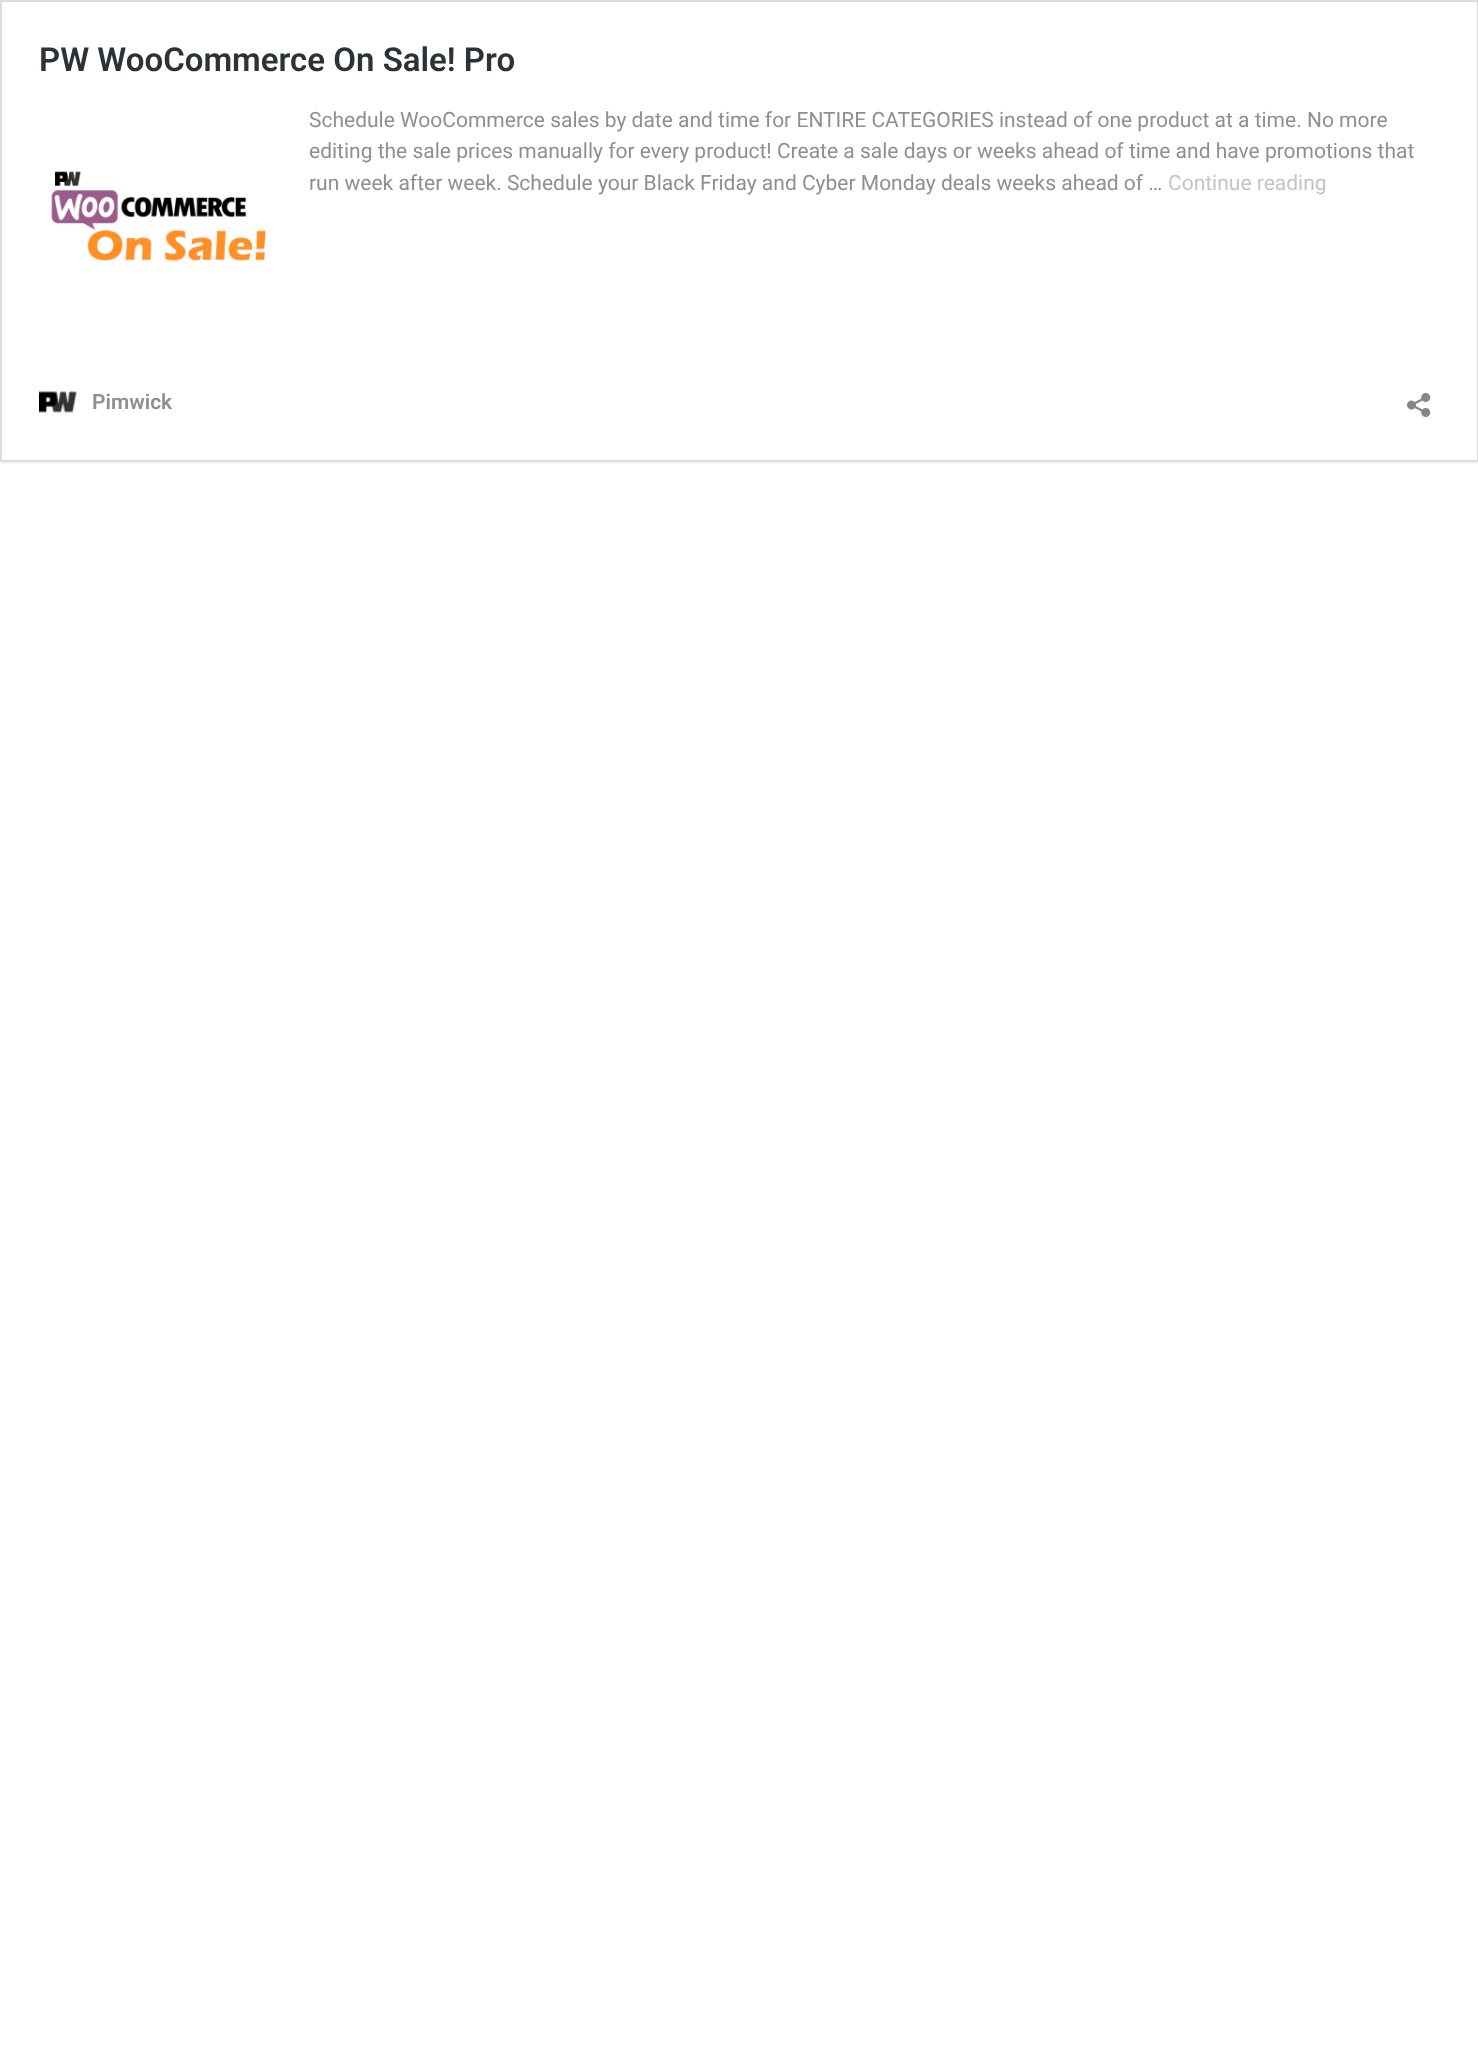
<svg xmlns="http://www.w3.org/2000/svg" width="1478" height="2068">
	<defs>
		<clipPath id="clip1"><rect x="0" y="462" width="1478" height="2" /></clipPath>
	</defs>
	<rect width="100%" height="100%" fill="#FFFFFF" />
	<g clip-path="url(#clip1)">
		<rect x="0" y="2" width="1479" height="462" fill="#000000" fill-opacity="0.05" filter="blur(1px)" />
	</g>
	<rect x="1" y="1" width="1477" height="460" fill="none" stroke="#DCDCDE" stroke-width="2" />
	<text x="39" y="71" font-family="Roboto" font-size="33" font-weight="600" fill="#2C3338">PW WooCommerce On Sale! Pro</text>
	<g font-family="Roboto" font-size="21" fill="#8C8F94">
		<text x="309" y="127">Schedule WooCommerce sales by date and time for ENTIRE CATEGORIES instead of one product at a time. No more</text>
		<text x="309" y="158">editing the sale prices manually for every product! Create a sale days or weeks ahead of time and have promotions that</text>
		<text x="309" y="190">run week after week. Schedule your Black Friday and Cyber Monday deals weeks ahead of …</text>
	</g>
	<text x="1168" y="190" font-family="Roboto" font-size="21" fill="#C3C4C7">Continue reading</text>
	<image x="51" y="171" width="215" height="90" href="assets/img1.png" />
	<image x="39" y="391" width="38" height="22" href="assets/img2.png" />
	<text x="92" y="409" font-family="Roboto" font-size="21" font-weight="600" fill="#8C8F94">Pimwick</text>
	<image x="1407" y="393" width="24" height="24" href="assets/img3.png" />
</svg>
